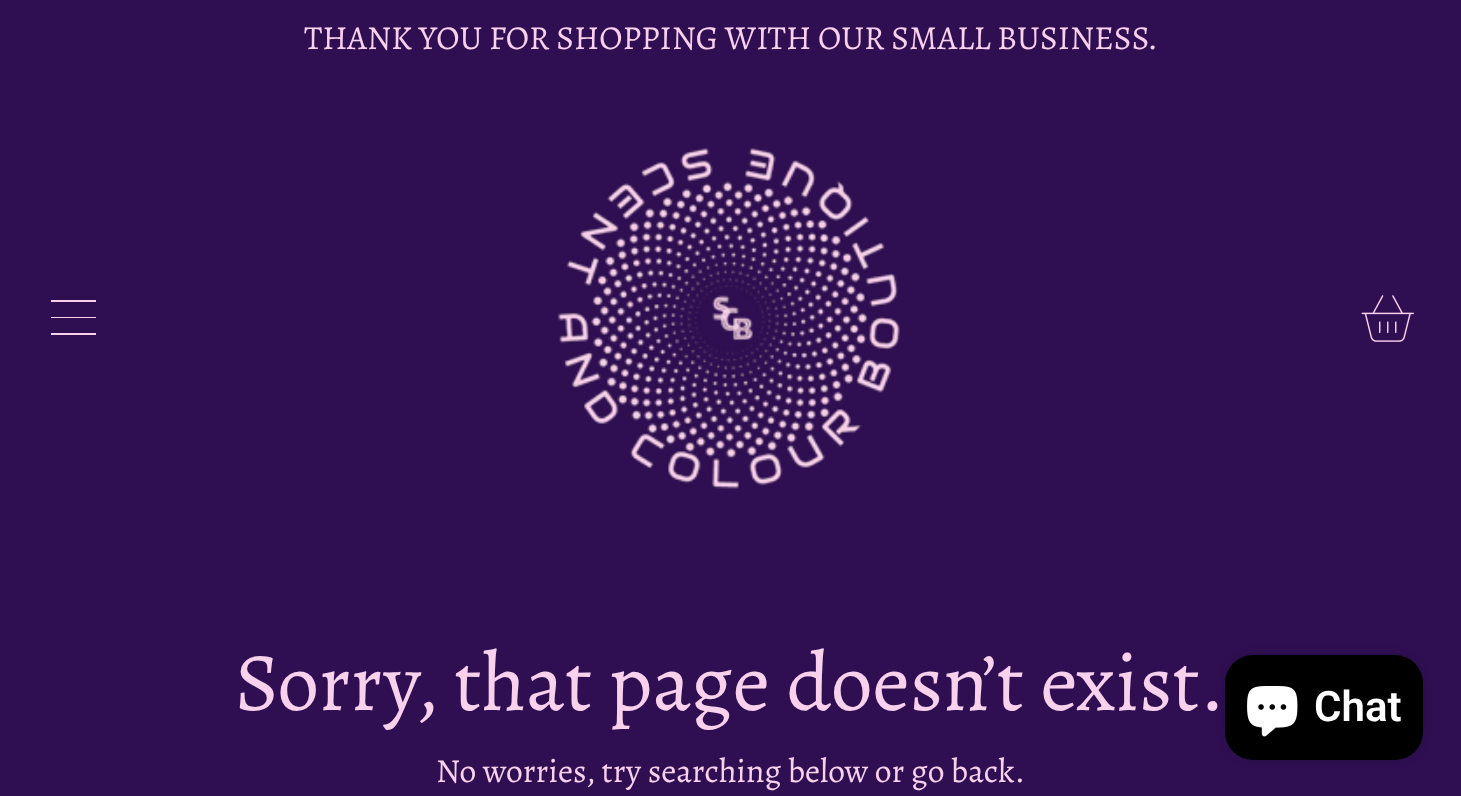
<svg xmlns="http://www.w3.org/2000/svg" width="1461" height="796">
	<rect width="100%" height="100%" fill="#2F0F52" />
	<text x="304" y="49" font-family="Alegreya" font-size="33.6" fill="#F8D1ED">THANK YOU FOR SHOPPING WITH OUR SMALL BUSINESS.</text>
	<path d="M51 301V300H96V301V302H51ZM51 318V317H96V318ZM96 334V335H51V334V333H96Z" fill="#F8D1ED" />
	<image x="557" y="148" width="343" height="341" href="assets/img1.png" />
	<image x="1361" y="295" width="53" height="47" href="assets/img2.png" />
	<text x="235" y="710" font-family="Alegreya" font-size="83.1" fill="#F8D1ED">Sorry, that page doesn’t exist.</text>
	<text x="436" y="782" font-family="Alegreya" font-size="33.6" fill="#F8D1ED">No worries, try searching below or go back.</text>
	<rect x="1225" y="655" width="198" height="105" rx="28" fill="#000000" fill-opacity="0.15" filter="blur(4.5px)" />
	<rect x="1225" y="655" width="198" height="105" rx="28" fill="#000000" />
	<image x="1247" y="686" width="51" height="51" href="assets/img3.png" />
	<text x="1314" y="721" font-family="Roboto" font-size="42" font-weight="600" fill="#FFFFFF">Chat</text>
</svg>
